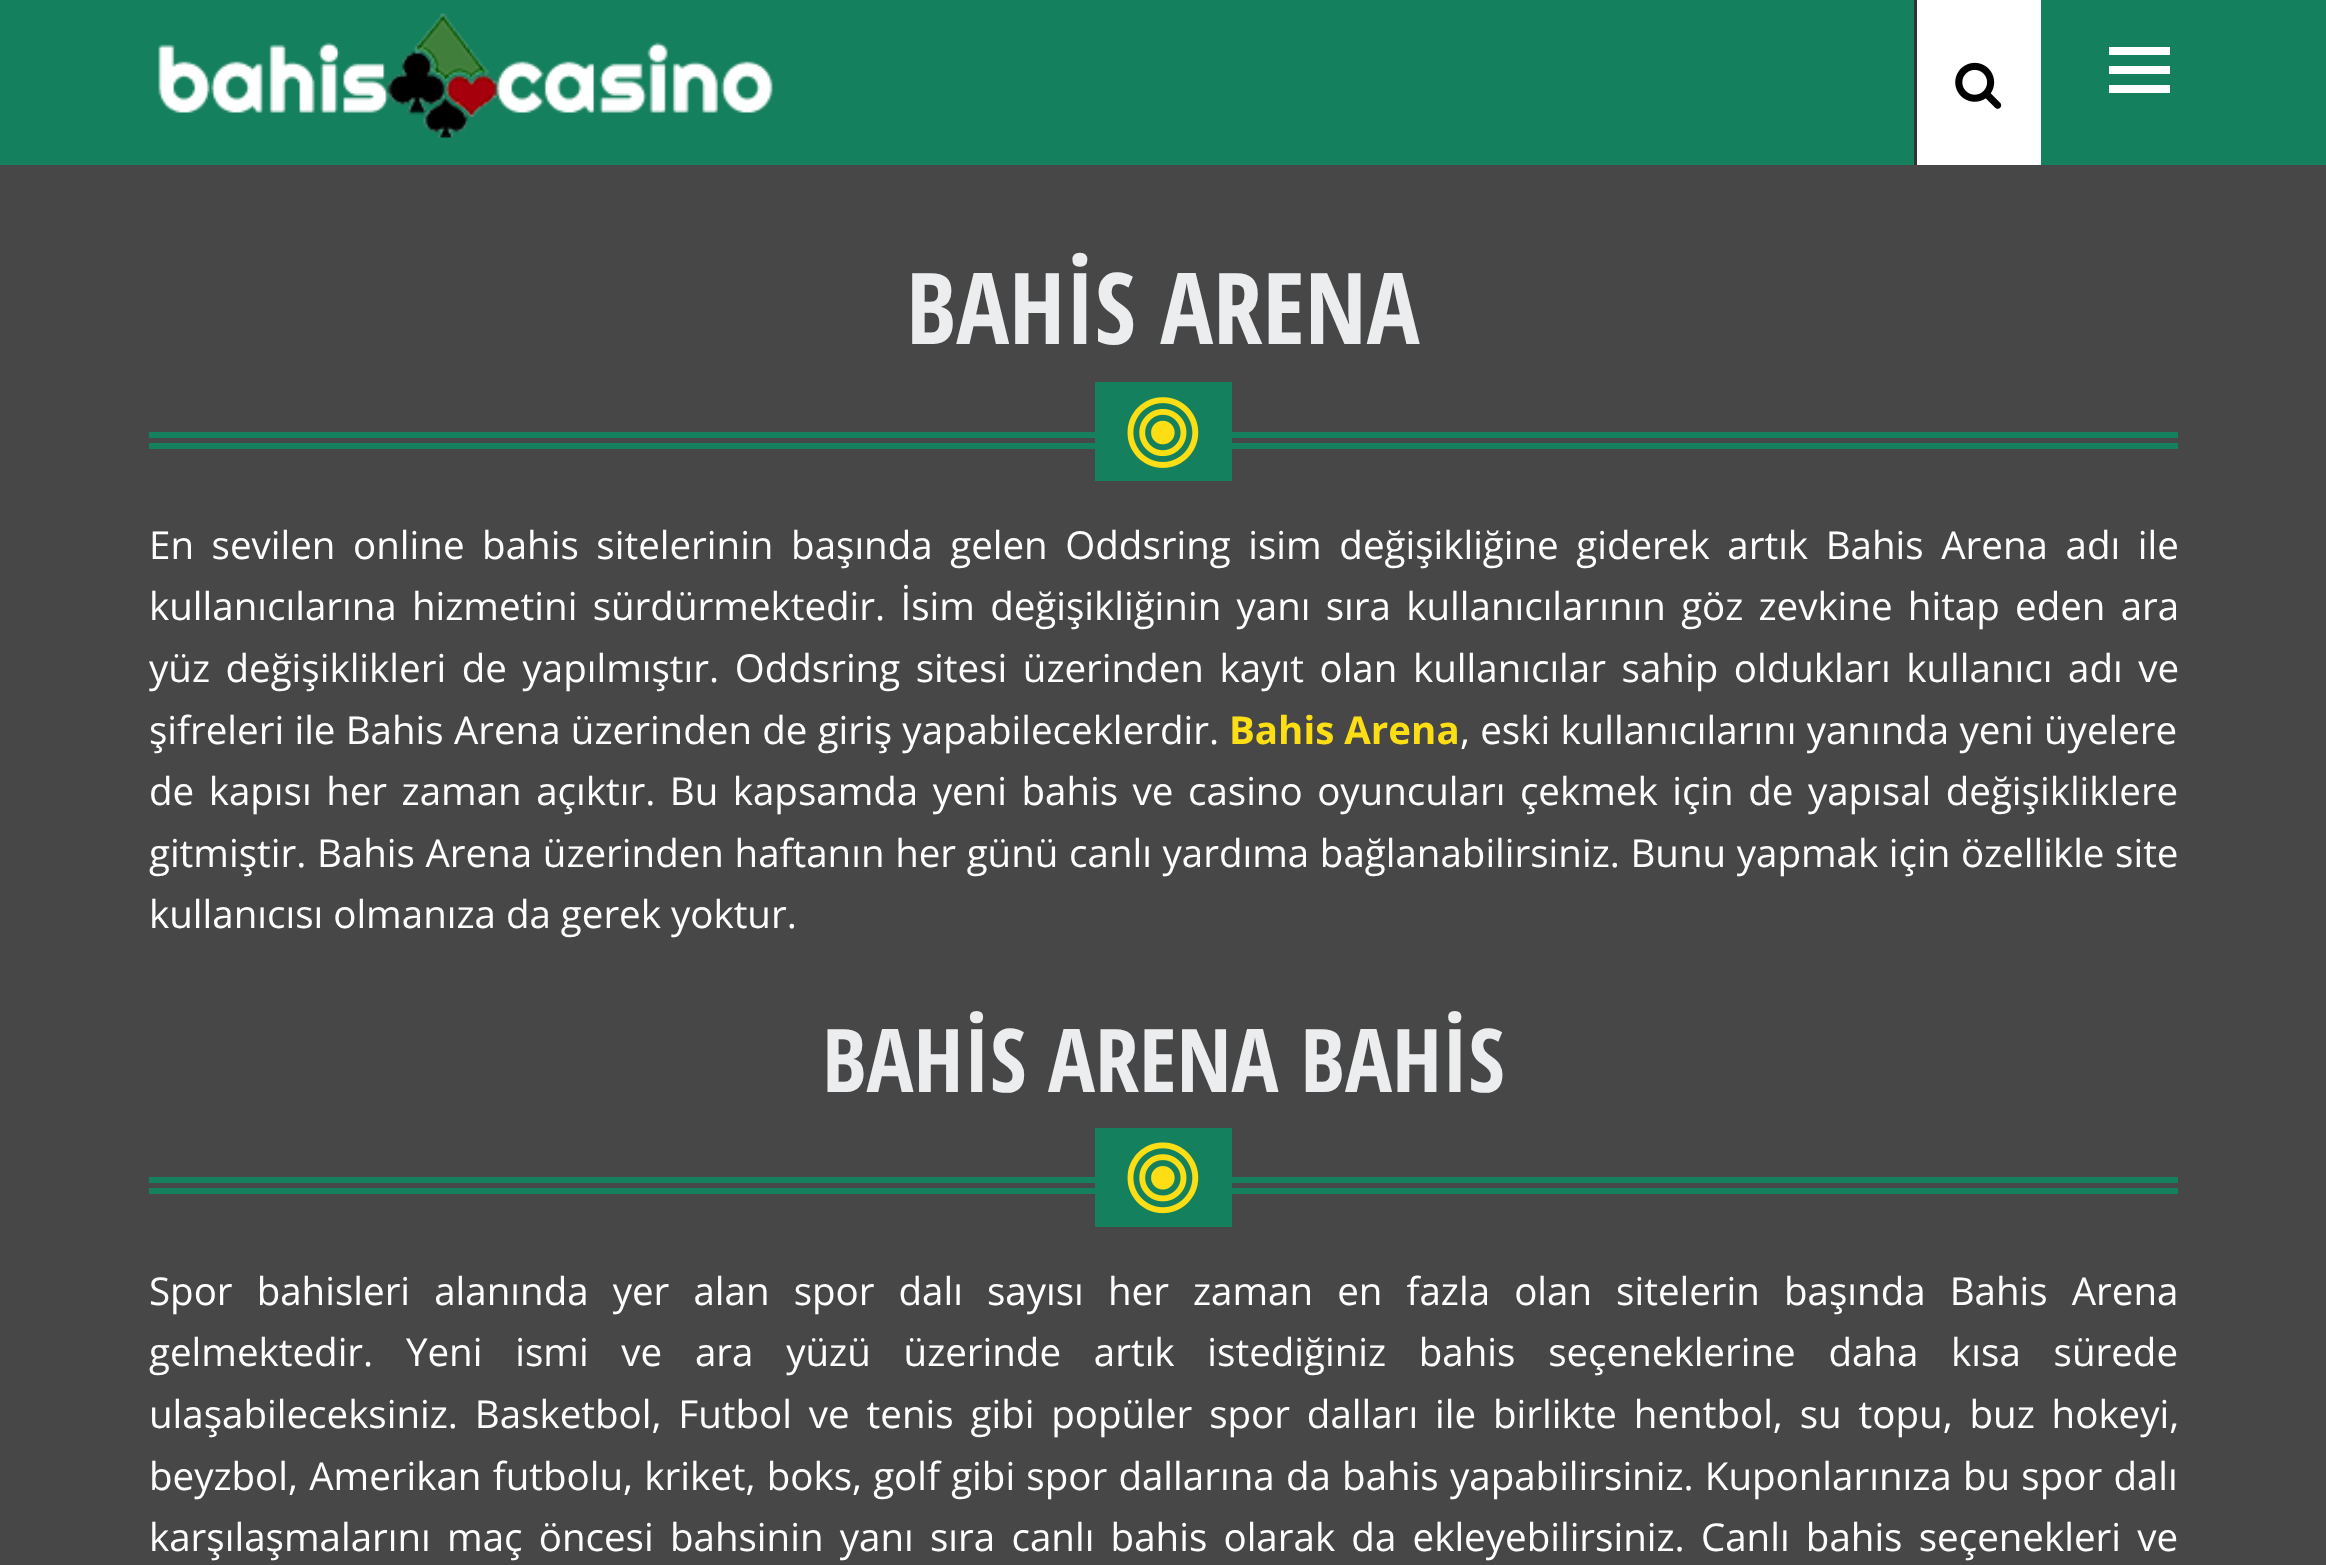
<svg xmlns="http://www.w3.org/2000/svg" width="2326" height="1565">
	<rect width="100%" height="100%" fill="#15805E" />
	<image x="158" y="13" width="615" height="125" href="assets/img1.png" />
	<rect x="1917" y="0" width="124" height="165" fill="#FFFFFF" />
	<rect x="1914" y="0" width="3" height="165" fill="#333333" />
	<image x="1955" y="62" width="47" height="47" href="assets/img2.png" />
	<rect x="2109" y="47" width="61" height="8" fill="#FFFFFF" />
	<rect x="2109" y="66" width="61" height="8" fill="#FFFFFF" />
	<rect x="2109" y="85" width="61" height="8" fill="#FFFFFF" />
	<rect x="0" y="165" width="2326" height="1400" fill="#474747" />
	<rect x="149" y="432" width="2029" height="6" fill="#15805E" />
	<rect x="149" y="443" width="2029" height="6" fill="#15805E" />
	<text x="906" y="344" font-family="Open Sans Condensed" font-size="99" font-weight="700" fill="#EBEDEF">BAHİS ARENA</text>
	<rect x="1095" y="382" width="137" height="99" fill="#15805E" />
	<image x="1127" y="397" width="72" height="71" href="assets/img3.png" />
	<g font-family="Open Sans" font-size="38.5" fill="#FFFFFF">
		<text x="149" y="559" word-spacing="7.6">En sevilen online bahis sitelerinin başında gelen Oddsring isim değişikliğine giderek artık Bahis Arena adı ile</text>
		<text x="149" y="620" word-spacing="5.25">kullanıcılarına hizmetini sürdürmektedir. İsim değişikliğinin yanı sıra kullanıcılarının göz zevkine hitap eden ara</text>
		<text x="149" y="682" word-spacing="5.6">yüz değişiklikleri de yapılmıştır. Oddsring sitesi üzerinden kayıt olan kullanıcılar sahip oldukları kullanıcı adı ve</text>
		<text x="149" y="744" word-spacing="0.25">şifreleri ile Bahis Arena üzerinden de giriş yapabileceklerdir.</text>
	</g>
	<text x="1229" y="744" font-family="Open Sans" font-size="38.5" font-weight="700" fill="#FDDE15">Bahis Arena</text>
	<g font-family="Open Sans" font-size="38.5" fill="#FFFFFF">
		<text x="1460" y="744" word-spacing="0.25">, eski kullanıcılarını yanında yeni üyelere</text>
		<text x="149" y="805" word-spacing="4.5">de kapısı her zaman açıktır. Bu kapsamda yeni bahis ve casino oyuncuları çekmek için de yapısal değişikliklere</text>
		<text x="149" y="867" word-spacing="0.6">gitmiştir. Bahis Arena üzerinden haftanın her günü canlı yardıma bağlanabilirsiniz. Bunu yapmak için özellikle site</text>
		<text x="149" y="928">kullanıcısı olmanıza da gerek yoktur.</text>
	</g>
	<rect x="149" y="1177" width="2029" height="6" fill="#15805E" />
	<rect x="149" y="1188" width="2029" height="6" fill="#15805E" />
	<text x="822" y="1092" font-family="Open Sans Condensed" font-size="88" font-weight="700" fill="#EBEDEF">BAHİS ARENA BAHİS</text>
	<rect x="1095" y="1128" width="137" height="99" fill="#15805E" />
	<image x="1127" y="1142" width="72" height="72" href="assets/img4.png" />
	<g font-family="Open Sans" font-size="38.5" fill="#FFFFFF">
		<text x="149" y="1305" word-spacing="14.1">Spor bahisleri alanında yer alan spor dalı sayısı her zaman en fazla olan sitelerin başında Bahis Arena</text>
		<text x="149" y="1366" word-spacing="22.75">gelmektedir. Yeni ismi ve ara yüzü üzerinde artık istediğiniz bahis seçeneklerine daha kısa sürede</text>
		<text x="149" y="1428" word-spacing="6.9">ulaşabileceksiniz. Basketbol, Futbol ve tenis gibi popüler spor dalları ile birlikte hentbol, su topu, buz hokeyi,</text>
		<text x="149" y="1490" word-spacing="1.25">beyzbol, Amerikan futbolu, kriket, boks, golf gibi spor dallarına da bahis yapabilirsiniz. Kuponlarınıza bu spor dalı</text>
		<text x="149" y="1551" word-spacing="6.25">karşılaşmalarını maç öncesi bahsinin yanı sıra canlı bahis olarak da ekleyebilirsiniz. Canlı bahis seçenekleri ve</text>
	</g>
</svg>
